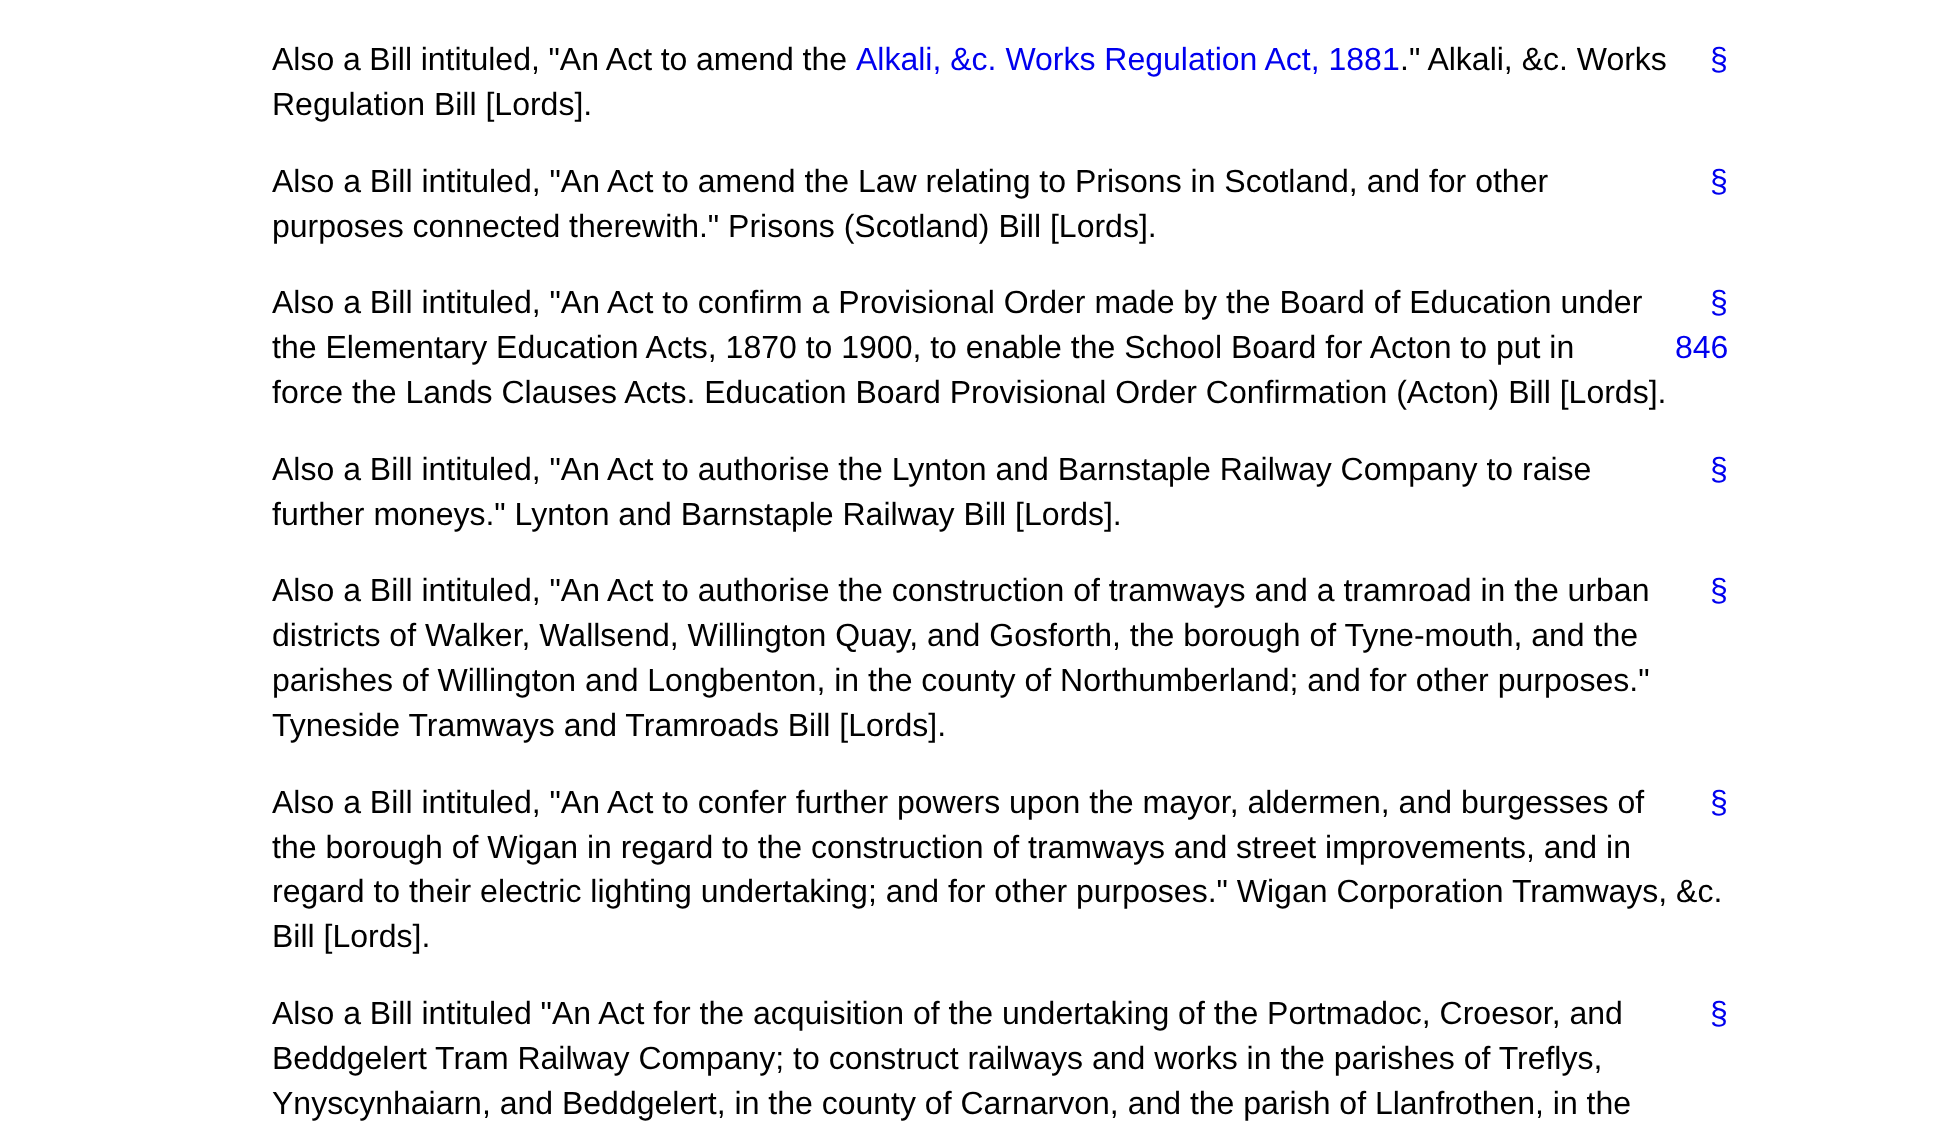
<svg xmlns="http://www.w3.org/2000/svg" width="1936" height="1144">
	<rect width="100%" height="100%" fill="#FFFFFF" />
	<text x="272" y="70" word-spacing="-0.25" font-family="Liberation Sans" font-size="32" fill="#000000">Also a Bill intituled, "An Act to amend the</text>
	<text x="856" y="70" font-family="Liberation Sans" font-size="32" fill="#0000EE">Alkali, &amp;c. Works Regulation Act, 1881</text>
	<text x="1400" y="70" font-family="Liberation Sans" font-size="32" fill="#000000">." Alkali, &amp;c. Works</text>
	<text x="1710" y="70" font-family="Liberation Sans" font-size="32" fill="#0000EE">§</text>
	<g font-family="Liberation Sans" font-size="32" fill="#000000">
		<text x="272" y="115">Regulation Bill [Lords].</text>
		<text x="272" y="192">Also a Bill intituled, "An Act to amend the Law relating to Prisons in Scotland, and for other</text>
	</g>
	<text x="1710" y="192" font-family="Liberation Sans" font-size="32" fill="#0000EE">§</text>
	<g font-family="Liberation Sans" font-size="32" fill="#000000">
		<text x="272" y="237">purposes connected therewith." Prisons (Scotland) Bill [Lords].</text>
		<text x="272" y="313">Also a Bill intituled, "An Act to confirm a Provisional Order made by the Board of Education under</text>
	</g>
	<text x="1710" y="313" font-family="Liberation Sans" font-size="32" fill="#0000EE">§</text>
	<text x="272" y="358" font-family="Liberation Sans" font-size="32" fill="#000000">the Elementary Education Acts, 1870 to 1900, to enable the School Board for Acton to put in</text>
	<text x="1675" y="358" font-family="Liberation Sans" font-size="32" fill="#0000EE">846</text>
	<g font-family="Liberation Sans" font-size="32" fill="#000000">
		<text x="272" y="403">force the Lands Clauses Acts. Education Board Provisional Order Confirmation (Acton) Bill [Lords].</text>
		<text x="272" y="480">Also a Bill intituled, "An Act to authorise the Lynton and Barnstaple Railway Company to raise</text>
	</g>
	<text x="1710" y="480" font-family="Liberation Sans" font-size="32" fill="#0000EE">§</text>
	<g font-family="Liberation Sans" font-size="32" fill="#000000">
		<text x="272" y="525">further moneys." Lynton and Barnstaple Railway Bill [Lords].</text>
		<text x="272" y="601">Also a Bill intituled, "An Act to authorise the construction of tramways and a tramroad in the urban</text>
	</g>
	<text x="1710" y="601" font-family="Liberation Sans" font-size="32" fill="#0000EE">§</text>
	<g font-family="Liberation Sans" font-size="32" fill="#000000">
		<text x="272" y="646">districts of Walker, Wallsend, Willington Quay, and Gosforth, the borough of Tyne-mouth, and the</text>
		<text x="272" y="691">parishes of Willington and Longbenton, in the county of Northumberland; and for other purposes."</text>
		<text x="272" y="736">Tyneside Tramways and Tramroads Bill [Lords].</text>
		<text x="272" y="813">Also a Bill intituled, "An Act to confer further powers upon the mayor, aldermen, and burgesses of</text>
	</g>
	<text x="1710" y="813" font-family="Liberation Sans" font-size="32" fill="#0000EE">§</text>
	<g font-family="Liberation Sans" font-size="32" fill="#000000">
		<text x="272" y="858">the borough of Wigan in regard to the construction of tramways and street improvements, and in</text>
		<text x="272" y="902">regard to their electric lighting undertaking; and for other purposes." Wigan Corporation Tramways, &amp;c.</text>
		<text x="272" y="947">Bill [Lords].</text>
		<text x="272" y="1024">Also a Bill intituled "An Act for the acquisition of the undertaking of the Portmadoc, Croesor, and</text>
	</g>
	<text x="1710" y="1024" font-family="Liberation Sans" font-size="32" fill="#0000EE">§</text>
	<g font-family="Liberation Sans" font-size="32" fill="#000000">
		<text x="272" y="1069">Beddgelert Tram Railway Company; to construct railways and works in the parishes of Treflys,</text>
		<text x="272" y="1114">Ynyscynhaiarn, and Beddgelert, in the county of Carnarvon, and the parish of Llanfrothen, in the</text>
	</g>
</svg>
